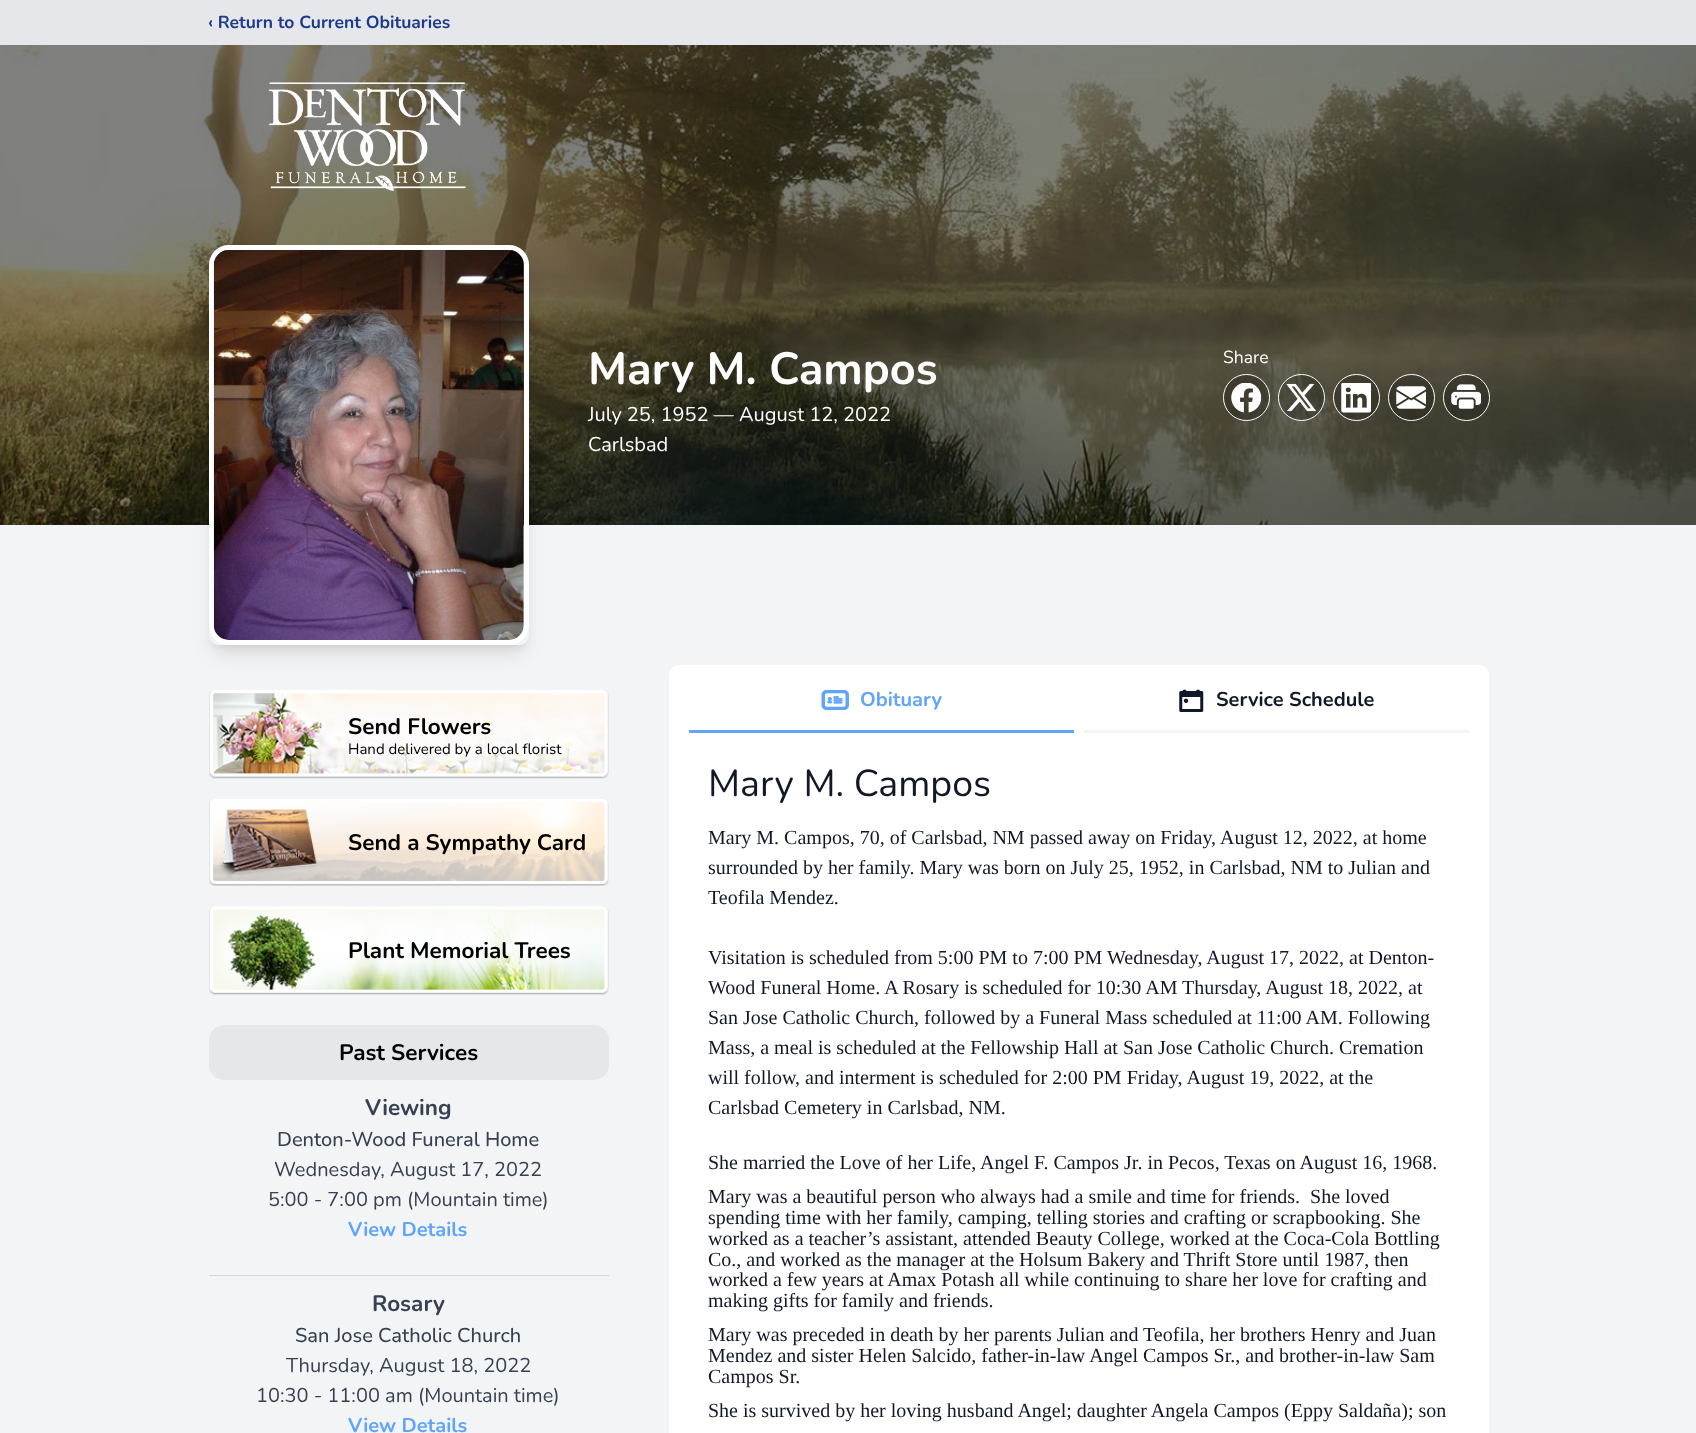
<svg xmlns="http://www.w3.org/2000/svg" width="1696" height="1433">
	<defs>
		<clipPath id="clip1"><path d="M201 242H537V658H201ZM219 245H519C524.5 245 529 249.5 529 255V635C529 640.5 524.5 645 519 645H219C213.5 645 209 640.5 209 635V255C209 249.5 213.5 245 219 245Z" clip-rule="evenodd" /></clipPath>
		<clipPath id="clip2"><path d="M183 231H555V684H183ZM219 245H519C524.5 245 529 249.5 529 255V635C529 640.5 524.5 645 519 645H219C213.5 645 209 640.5 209 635V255C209 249.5 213.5 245 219 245Z" clip-rule="evenodd" /></clipPath>
	</defs>
	<rect width="100%" height="100%" fill="#F3F4F6" />
	<rect x="0" y="0" width="1696" height="45" fill="#E5E7EB" />
	<text x="208" y="28" font-family="Nunito" font-size="17.5" font-weight="700" fill="#1E3A8A">‹ Return to Current Obituaries</text>
	<image x="0" y="45" width="1696" height="480" href="assets/img1.png" />
	<image x="268" y="82" width="198" height="109" href="assets/img2.png" />
	<g clip-path="url(#clip1)">
		<rect x="214" y="255" width="310" height="390" rx="5" fill="#000000" fill-opacity="0.1" filter="blur(4px)" />
	</g>
	<g clip-path="url(#clip2)">
		<rect x="213" y="261" width="312" height="393" rx="6" fill="#000000" fill-opacity="0.1" filter="blur(9.5px)" />
	</g>
	<rect x="211.5" y="247.5" width="315" height="395" rx="17.5" fill="none" stroke="#FFFFFF" stroke-width="5" />
	<image x="213" y="250" width="311" height="390" href="assets/img3.png" />
	<text x="588" y="384" font-family="Nunito" font-size="45" font-weight="700" fill="#FFFFFF">Mary M. Campos</text>
	<g font-family="Nunito" font-size="20" fill="#FFFFFF">
		<text x="588" y="421">July 25, 1952 — August 12, 2022</text>
		<text x="588" y="451">Carlsbad</text>
	</g>
	<text x="1223" y="363" font-family="Nunito" font-size="17.5" fill="#FFFFFF">Share</text>
	<circle cx="1246.5" cy="397.5" r="23" fill="none" stroke="#FFFFFF" />
	<circle cx="1246.5" cy="397.5" r="22.5" fill="#000000" fill-opacity="0.2" />
	<image x="1231" y="383" width="30" height="30" href="assets/img4.png" />
	<circle cx="1301.5" cy="397.5" r="23" fill="none" stroke="#FFFFFF" />
	<circle cx="1301.5" cy="397.5" r="22.5" fill="#000000" fill-opacity="0.2" />
	<image x="1286" y="383" width="30" height="29" href="assets/img5.png" />
	<circle cx="1356.5" cy="397.5" r="23" fill="none" stroke="#FFFFFF" />
	<circle cx="1356.5" cy="397.5" r="22.5" fill="#000000" fill-opacity="0.2" />
	<image x="1341" y="383" width="30" height="30" href="assets/img6.png" />
	<circle cx="1411.5" cy="397.5" r="23" fill="none" stroke="#FFFFFF" />
	<circle cx="1411.5" cy="397.5" r="22.5" fill="#000000" fill-opacity="0.2" />
	<image x="1396" y="386" width="30" height="23" href="assets/img7.png" />
	<circle cx="1466.5" cy="397.5" r="23" fill="none" stroke="#FFFFFF" />
	<circle cx="1466.5" cy="397.5" r="22.5" fill="#000000" fill-opacity="0.2" />
	<image x="1451" y="384" width="30" height="25" href="assets/img8.png" />
	<image x="209" y="690" width="400" height="89" href="assets/img9.png" />
	<text x="348" y="734" font-family="Nunito" font-size="22.5" font-weight="700" fill="#000000">Send Flowers</text>
	<text x="348" y="754" font-family="Nunito" font-size="15" fill="#000000">Hand delivered by a local florist</text>
	<image x="209" y="799" width="400" height="87" href="assets/img10.png" />
	<text x="348" y="850" font-family="Nunito" font-size="22.5" font-weight="700" fill="#000000">Send a Sympathy Card</text>
	<image x="209" y="906" width="400" height="89" href="assets/img11.png" />
	<text x="348" y="958" font-family="Nunito" font-size="22.5" font-weight="700" fill="#000000">Plant Memorial Trees</text>
	<rect x="209" y="1025" width="400" height="55" rx="15" fill="#E5E7EB" />
	<text x="339" y="1060" font-family="Nunito" font-size="22.5" font-weight="700" fill="#000000">Past Services</text>
	<rect x="209" y="1275" width="400" height="1" fill="#D1D5DB" />
	<text x="365" y="1115" font-family="Nunito" font-size="22.5" font-weight="700" fill="#374151">Viewing</text>
	<text x="277" y="1146" font-family="Nunito" font-size="20" font-weight="500" fill="#374151">Denton-Wood Funeral Home</text>
	<g font-family="Nunito" font-size="20" fill="#374151">
		<text x="274" y="1176">Wednesday, August 17, 2022</text>
		<text x="268" y="1206">5:00 - 7:00 pm (Mountain time)</text>
	</g>
	<text x="348" y="1236" font-family="Nunito" font-size="20" font-weight="700" fill="#60A5FA">View Details</text>
	<text x="372" y="1311" font-family="Nunito" font-size="22.5" font-weight="700" fill="#374151">Rosary</text>
	<text x="295" y="1342" font-family="Nunito" font-size="20" font-weight="500" fill="#374151">San Jose Catholic Church</text>
	<g font-family="Nunito" font-size="20" fill="#374151">
		<text x="286" y="1372">Thursday, August 18, 2022</text>
		<text x="256" y="1402">10:30 - 11:00 am (Mountain time)</text>
	</g>
	<text x="348" y="1432" font-family="Nunito" font-size="20" font-weight="700" fill="#60A5FA">View Details</text>
	<rect x="669" y="665" width="820" height="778" rx="10" fill="#FFFFFF" />
	<rect x="689" y="730" width="385" height="3" fill="#60A5FA" />
	<image x="821" y="690" width="28" height="20" href="assets/img12.png" />
	<text x="860" y="706" font-family="Nunito" font-size="20" font-weight="700" fill="#60A5FA">Obituary</text>
	<rect x="1084" y="730" width="385" height="3" fill="#F3F4F6" />
	<image x="1179" y="689" width="25" height="23" href="assets/img13.png" />
	<text x="1216" y="706" font-family="Nunito" font-size="20" font-weight="700" fill="#111827">Service Schedule</text>
	<text x="708" y="796" font-family="Nunito" font-size="37.5" fill="#111827">Mary M. Campos</text>
	<g font-family="Liberation Serif" font-size="20" fill="#111827">
		<text x="708" y="844">Mary M. Campos, 70, of Carlsbad, NM passed away on Friday, August 12, 2022, at home</text>
		<text x="708" y="874">surrounded by her family. Mary was born on July 25, 1952, in Carlsbad, NM to Julian and</text>
		<text x="708" y="904">Teofila Mendez.</text>
		<text x="708" y="964">Visitation is scheduled from 5:00 PM to 7:00 PM Wednesday, August 17, 2022, at Denton-</text>
		<text x="708" y="994">Wood Funeral Home. A Rosary is scheduled for 10:30 AM Thursday, August 18, 2022, at</text>
		<text x="708" y="1024">San Jose Catholic Church, followed by a Funeral Mass scheduled at 11:00 AM. Following</text>
		<text x="708" y="1054">Mass, a meal is scheduled at the Fellowship Hall at San Jose Catholic Church. Cremation</text>
		<text x="708" y="1084">will follow, and interment is scheduled for 2:00 PM Friday, August 19, 2022, at the</text>
		<text x="708" y="1114">Carlsbad Cemetery in Carlsbad, NM.</text>
		<text x="708" y="1169">She married the Love of her Life, Angel F. Campos Jr. in Pecos, Texas on August 16, 1968.</text>
		<text x="708" y="1203" xml:space="preserve">Mary was a beautiful person who always had a smile and time for friends.  She loved</text>
		<text x="708" y="1224">spending time with her family, camping, telling stories and crafting or scrapbooking. She</text>
		<text x="708" y="1245">worked as a teacher’s assistant, attended Beauty College, worked at the Coca-Cola Bottling</text>
		<text x="708" y="1266">Co., and worked as the manager at the Holsum Bakery and Thrift Store until 1987, then</text>
		<text x="708" y="1286">worked a few years at Amax Potash all while continuing to share her love for crafting and</text>
		<text x="708" y="1307">making gifts for family and friends.</text>
		<text x="708" y="1341">Mary was preceded in death by her parents Julian and Teofila, her brothers Henry and Juan</text>
		<text x="708" y="1362">Mendez and sister Helen Salcido, father-in-law Angel Campos Sr., and brother-in-law Sam</text>
		<text x="708" y="1383">Campos Sr.</text>
		<text x="708" y="1417">She is survived by her loving husband Angel; daughter Angela Campos (Eppy Saldaña); son</text>
	</g>
</svg>
